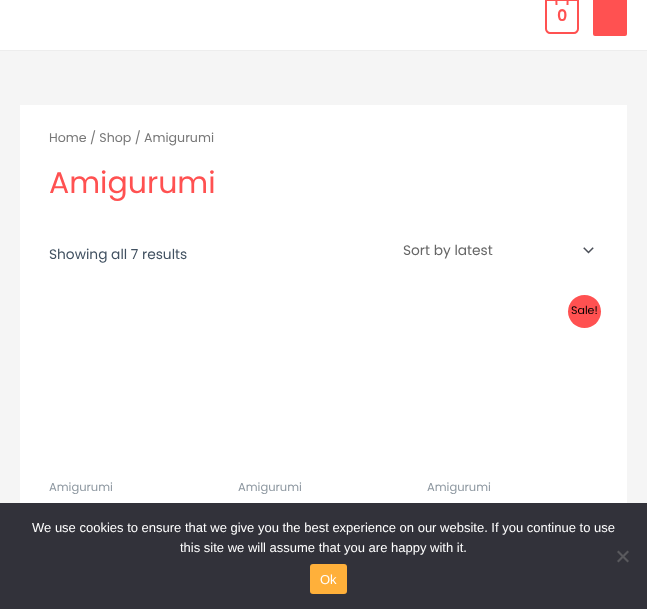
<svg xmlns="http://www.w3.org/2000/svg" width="647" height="609">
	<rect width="100%" height="100%" fill="#F5F5F5" />
	<rect x="0" y="0" width="647" height="50" fill="#FFFFFF" />
	<rect x="0" y="50" width="647" height="1" fill="#EDEDED" />
	<path d="M546 0H578V29C578 31 576 33 574 33H550C548 33 546 31 546 29Z" fill="none" stroke="#FF5151" stroke-width="2" />
	<path d="M562-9C569.5-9 568.5 0 568.5 5H555.5C555.5 0 554-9 562-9ZM562-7C568-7 566.5 1 566.5 5H557.5C557.5 1 556-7 562-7Z" fill="#FF5151" fill-rule="evenodd" />
	<text x="557" y="21" font-family="Poppins" font-size="16" font-weight="600" fill="#FF5151">0</text>
	<rect x="593" y="-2" width="34" height="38" rx="2" fill="#FF5151" />
	<rect x="20" y="105" width="607" height="398" fill="#FFFFFF" />
	<text x="49" y="142" font-family="Poppins" font-size="12.6" fill="#777777">Home / Shop / Amigurumi</text>
	<text x="49" y="193" font-family="Poppins" font-size="30" fill="#FF5151">Amigurumi</text>
	<text x="49" y="259" font-family="Poppins" font-size="13.75" fill="#415161">Showing all 7 results</text>
	<image x="583" y="247" width="11" height="7" href="assets/img1.png" />
	<text x="403" y="255" font-family="Poppins" font-size="13.75" fill="#666666">Sort by latest</text>
	<g font-family="Poppins" font-size="11.5" fill="#8D97A0">
		<text x="49" y="491">Amigurumi</text>
		<text x="238" y="491">Amigurumi</text>
	</g>
	<circle cx="584.5" cy="311.5" r="16.5" fill="#FF5151" />
	<text x="571" y="314" font-family="Poppins" font-size="11" fill="#000000">Sale!</text>
	<text x="427" y="491" font-family="Poppins" font-size="11.5" fill="#8D97A0">Amigurumi</text>
	<rect x="0" y="503" width="647" height="106" fill="#32323A" />
	<g font-family="Liberation Sans" font-size="13" fill="#FFFFFF">
		<text x="32" y="532">We use cookies to ensure that we give you the best experience on our website. If you continue to use</text>
		<text x="180" y="552">this site we will assume that you are happy with it.</text>
	</g>
	<path d="M627.5 550.5L629 552L618.5 562.5L617 561Z" fill="#59595D" />
	<path d="M617 552L618.5 550.5L629 561L627.5 562.5Z" fill="#59595D" />
	<rect x="310" y="564" width="37" height="30" rx="3" fill="#FFB03A" />
	<text x="320" y="584" font-family="Liberation Sans" font-size="13" fill="#FFFFFF">Ok</text>
</svg>
